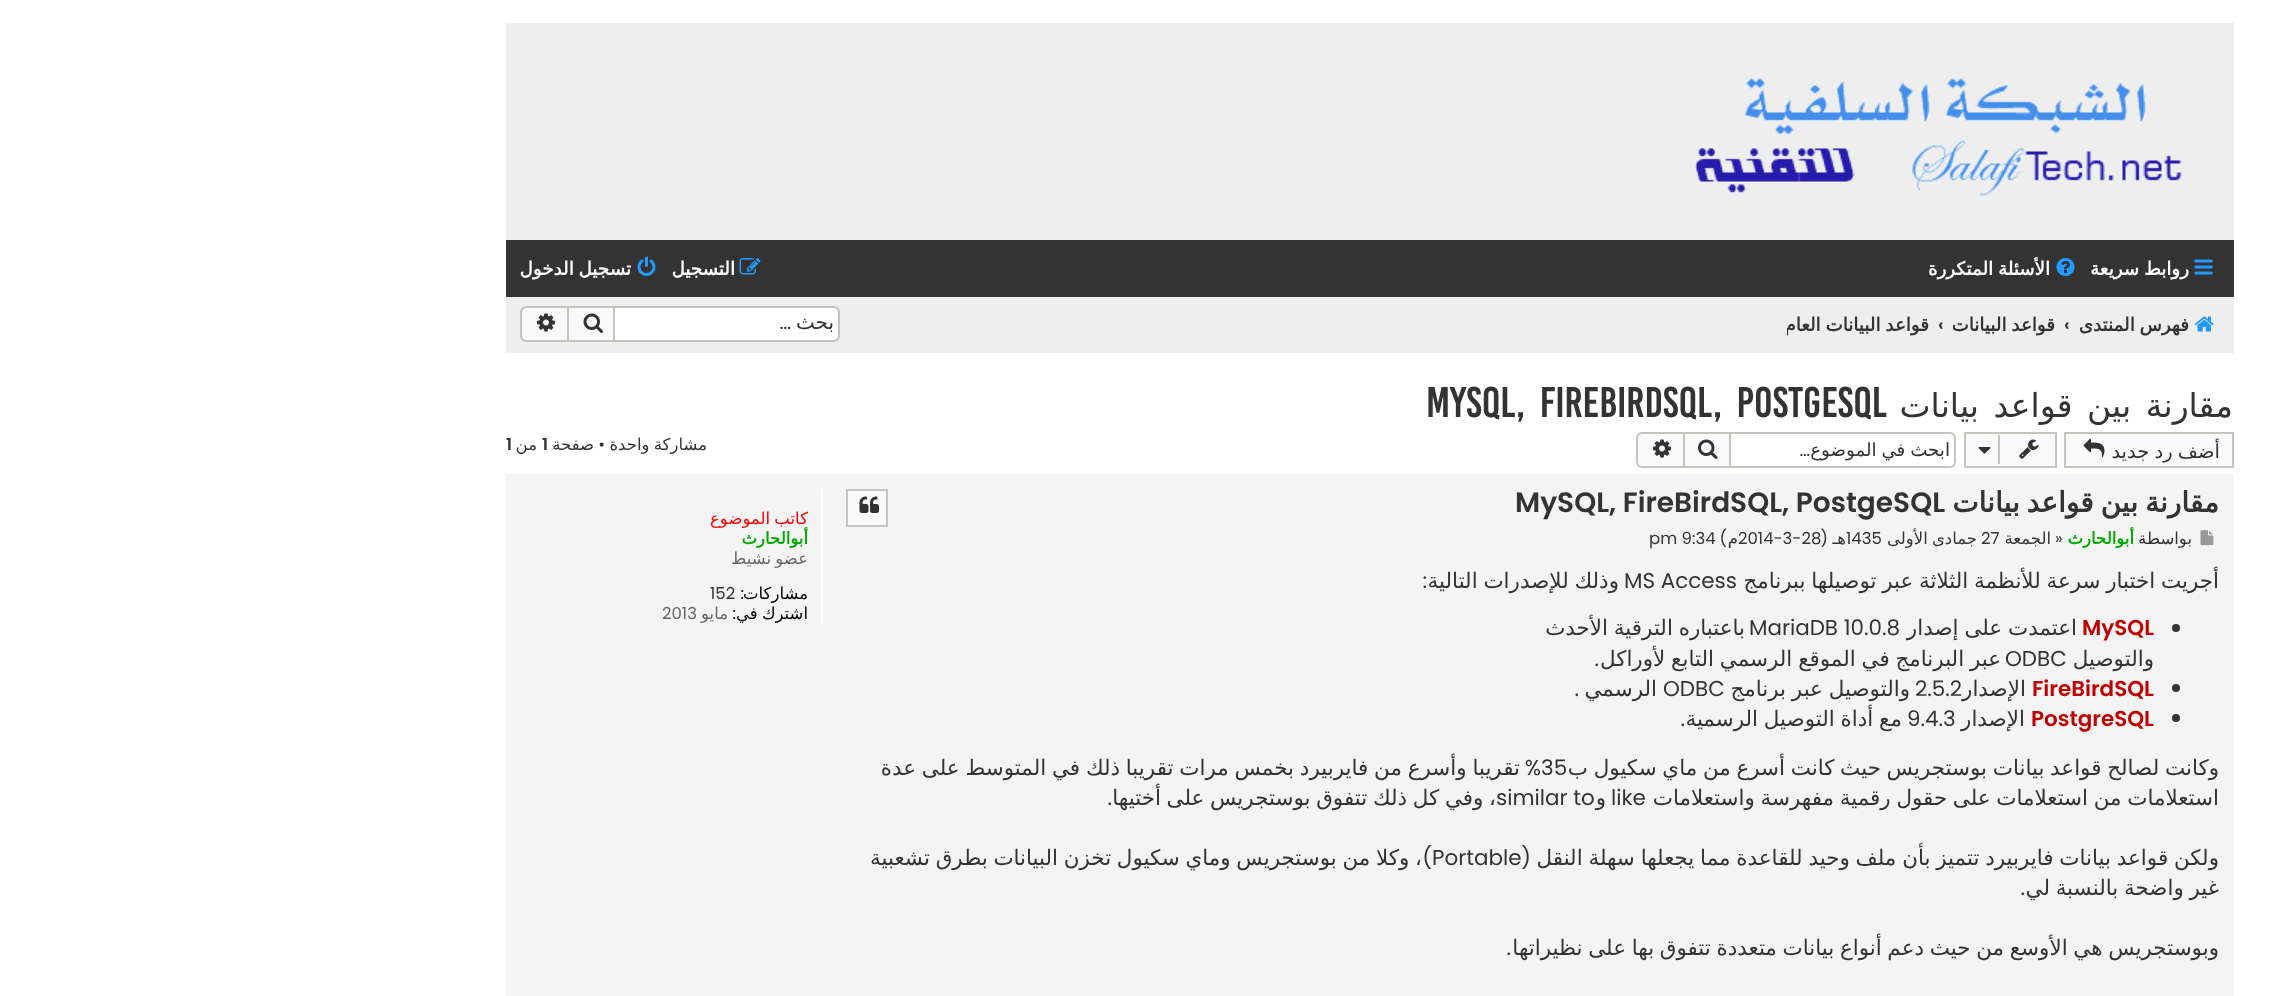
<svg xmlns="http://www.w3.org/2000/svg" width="2274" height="996">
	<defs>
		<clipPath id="clip1"><rect x="1953" y="306" width="102" height="39" /></clipPath>
		<clipPath id="clip2"><rect x="1787" y="306" width="142" height="39" /></clipPath>
		<clipPath id="clip3"><rect x="846" y="566" width="1373" height="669" /></clipPath>
	</defs>
	<rect width="100%" height="100%" fill="#FFFFFF" />
	<rect x="506" y="23" width="1728" height="217" fill="#EEEEEE" />
	<image x="1694" y="77" width="488" height="119" href="assets/img1.png" />
	<rect x="506" y="240" width="1728" height="57" fill="#333333" />
	<image x="2194" y="259" width="19" height="16" href="assets/img2.png" />
	<text x="2189" y="275" word-spacing="-1" font-family="DejaVu Sans" font-size="18.25" font-weight="700" direction="rtl" fill="#FFFFFF">روابط سريعة</text>
	<image x="2056" y="258" width="19" height="18" href="assets/img3.png" />
	<text x="2050" y="275" word-spacing="-1" font-family="DejaVu Sans" font-size="18.25" font-weight="700" direction="rtl" fill="#FFFFFF">الأسئلة المتكررة</text>
	<image x="739" y="258" width="22" height="17" href="assets/img4.png" />
	<text x="735" y="275" font-family="DejaVu Sans" font-size="18.25" font-weight="700" direction="rtl" fill="#FFFFFF">التسجيل</text>
	<image x="637" y="256" width="19" height="20" href="assets/img5.png" />
	<text x="631" y="275" word-spacing="-1" font-family="DejaVu Sans" font-size="18.25" font-weight="700" direction="rtl" fill="#FFFFFF">تسجيل الدخول</text>
	<rect x="506" y="297" width="1728" height="56" fill="#EEEEEE" />
	<image x="2194" y="316" width="20" height="16" href="assets/img6.png" />
	<text x="2189" y="331" word-spacing="-1" font-family="DejaVu Sans" font-size="18.25" font-weight="700" direction="rtl" fill="#333333">فهرس المنتدى</text>
	<text x="2064" y="331" font-family="Poppins" font-size="18.25" font-weight="600" fill="#333333">‹</text>
	<g clip-path="url(#clip1)">
		<text x="2055" y="331" word-spacing="-1" font-family="DejaVu Sans" font-size="18.25" font-weight="700" direction="rtl" fill="#333333">قواعد البيانات</text>
	</g>
	<text x="1938" y="331" font-family="Poppins" font-size="18.25" font-weight="600" fill="#333333">‹</text>
	<g clip-path="url(#clip2)">
		<text x="1929" y="331" word-spacing="-1" font-family="DejaVu Sans" font-size="18.25" font-weight="700" direction="rtl" fill="#333333">قواعد البيانات العام</text>
	</g>
	<path d="M615 308H834C837 308 839 310 839 313V336C839 339 837 341 834 341H615Z" fill="#FFFFFF" />
	<path d="M615 306H834C837 306 840 309 840 312V336C840 339 837 342 834 342H615ZM615 308H834C836 308 838 310 838 312V336C838 338 836 340 834 340H615Z" fill="#C7C3BF" fill-rule="evenodd" />
	<text x="834" y="329" font-family="DejaVu Sans" font-size="20" direction="rtl" fill="#333333">بحث</text>
	<text x="791" y="329" font-family="Poppins" font-size="20" direction="rtl" fill="#333333">…</text>
	<rect x="568" y="307" width="46" height="34" fill="#FAFAFA" stroke="#C7C3BF" stroke-width="2" />
	<image x="583" y="313" width="20" height="20" href="assets/img7.png" />
	<path d="M527 308H567V341H527C524 341 522 339 522 336V313C522 310 524 308 527 308Z" fill="#FAFAFA" />
	<path d="M526 306H567V342H526C523 342 520 339 520 336V312C520 309 523 306 526 306ZM526 308H567V340H526C524 340 522 338 522 336V312C522 310 524 308 526 308Z" fill="#C7C3BF" fill-rule="evenodd" />
	<image x="537" y="313" width="18" height="19" href="assets/img8.png" />
	<text x="2233" y="417" word-spacing="4" font-family="DejaVu Sans" font-size="33" direction="rtl" fill="#333333">مقارنة بين قواعد بيانات</text>
	<text x="1426" y="417" word-spacing="6" font-family="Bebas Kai" font-size="33" fill="#333333">MySQL, FireBirdSQL, PostgeSQL</text>
	<rect x="2065" y="433" width="168" height="34" fill="#FAFAFA" stroke="#C7C3BF" stroke-width="2" />
	<text x="2220" y="458" word-spacing="-1" font-family="DejaVu Sans" font-size="19.5" direction="rtl" fill="#333333">أضف رد جديد</text>
	<image x="2083" y="438" width="22" height="20" href="assets/img9.png" />
	<rect x="1965" y="433" width="91" height="34" fill="#FAFAFA" stroke="#C7C3BF" stroke-width="2" />
	<image x="2019" y="439" width="20" height="20" href="assets/img10.png" />
	<rect x="1998" y="435" width="2" height="29" fill="#C7C3BF" />
	<image x="1978" y="447" width="13" height="7" href="assets/img11.png" />
	<path d="M1731 432H1950C1953 432 1956 435 1956 438V462C1956 465 1953 468 1950 468H1731ZM1731 434H1950C1952 434 1954 436 1954 438V462C1954 464 1952 466 1950 466H1731Z" fill="#C7C3BF" fill-rule="evenodd" />
	<text x="1950" y="456" word-spacing="-1" font-family="DejaVu Sans" font-size="18.25" direction="rtl" fill="#333333">ابحث في الموضوع</text>
	<text x="1810" y="456" font-family="Poppins" font-size="18.25" direction="rtl" fill="#333333">…</text>
	<rect x="1684" y="433" width="46" height="34" fill="#FAFAFA" stroke="#C7C3BF" stroke-width="2" />
	<image x="1698" y="439" width="20" height="20" href="assets/img12.png" />
	<path d="M1643 434H1683V467H1643C1640 467 1638 465 1638 462V439C1638 436 1640 434 1643 434Z" fill="#FAFAFA" />
	<path d="M1642 432H1683V468H1642C1639 468 1636 465 1636 462V438C1636 435 1639 432 1642 432ZM1642 434H1683V466H1642C1640 466 1638 464 1638 462V438C1638 436 1640 434 1642 434Z" fill="#C7C3BF" fill-rule="evenodd" />
	<image x="1653" y="439" width="18" height="19" href="assets/img8.png" />
	<text x="707" y="450" word-spacing="-1" font-family="DejaVu Sans" font-size="16.5" direction="rtl" fill="#333333">مشاركة واحدة</text>
	<text x="605" y="450" font-family="Poppins" font-size="16.5" direction="rtl" fill="#333333">•</text>
	<text x="594" y="450" font-family="DejaVu Sans" font-size="16.5" direction="rtl" fill="#333333">صفحة</text>
	<text x="542" y="450" font-family="Poppins" font-size="16.5" font-weight="600" fill="#333333">1</text>
	<text x="537" y="450" font-family="DejaVu Sans" font-size="16.5" direction="rtl" fill="#333333">من</text>
	<text x="506" y="450" font-family="Poppins" font-size="16.5" font-weight="600" fill="#333333">1</text>
	<rect x="506" y="474" width="1728" height="522" fill="#F4F4F4" />
	<text x="2219" y="512" word-spacing="-2" font-family="DejaVu Sans" font-size="28" font-weight="700" direction="rtl" fill="#333333">مقارنة بين قواعد بيانات</text>
	<text x="1515" y="512" font-family="Poppins" font-size="28" font-weight="600" fill="#333333">MySQL, FireBirdSQL, PostgeSQL</text>
	<rect x="847" y="490" width="40" height="36" fill="#FAFAFA" stroke="#C7C3BF" stroke-width="2" />
	<image x="859" y="496" width="20" height="17" href="assets/img13.png" />
	<image x="2200" y="530" width="14" height="16" href="assets/img14.png" />
	<text x="2192" y="544" font-family="DejaVu Sans" font-size="16.5" direction="rtl" fill="#333333">بواسطة</text>
	<text x="2134" y="544" font-family="DejaVu Sans" font-size="16.5" font-weight="700" direction="rtl" fill="#00AA00">أبوالحارث</text>
	<text x="2055" y="544" font-family="Poppins" font-size="16.5" fill="#333333">»</text>
	<text x="2051" y="544" font-family="DejaVu Sans" font-size="16.5" direction="rtl" fill="#333333">الجمعة</text>
	<text x="1981" y="544" font-family="Poppins" font-size="16.5" fill="#333333">27</text>
	<text x="1977" y="544" word-spacing="-1" font-family="DejaVu Sans" font-size="16.5" direction="rtl" fill="#333333">جمادى الأولى</text>
	<text x="1846" y="544" font-family="Poppins" font-size="16.5" fill="#333333">1435</text>
	<text x="1846" y="544" font-family="DejaVu Sans" font-size="16.5" direction="rtl" fill="#333333">هـ</text>
	<text x="1828" y="544" font-family="Poppins" font-size="16.5" direction="rtl" fill="#333333">(</text>
	<text x="1738" y="544" font-family="Poppins" font-size="16.5" fill="#333333">2014-3-28</text>
	<text x="1738" y="544" font-family="DejaVu Sans" font-size="16.5" direction="rtl" fill="#333333">م</text>
	<text x="1727" y="544" font-family="Poppins" font-size="16.5" direction="rtl" fill="#333333">)</text>
	<text x="1649" y="544" font-family="Poppins" font-size="16.5" fill="#333333">pm 9:34</text>
	<g clip-path="url(#clip3)">
		<text x="2219" y="588" word-spacing="-1.1" font-family="DejaVu Sans" font-size="21.45" direction="rtl" fill="#333333">أجريت اختبار سرعة للأنظمة الثلاثة عبر توصيلها ببرنامج</text>
	</g>
	<text x="1624" y="588" font-family="Poppins" font-size="21.45" fill="#333333">MS Access</text>
	<text x="1619" y="588" word-spacing="-1" font-family="DejaVu Sans" font-size="21.45" direction="rtl" fill="#333333">وذلك للإصدرات التالية</text>
	<text x="1427" y="588" font-family="Poppins" font-size="21.45" direction="rtl" fill="#333333">:</text>
	<circle cx="2176" cy="628" r="4" fill="#333333" />
	<text x="2082" y="635" font-family="Poppins" font-size="21.45" font-weight="600" fill="#BF0000">MySQL</text>
	<text x="2077" y="635" word-spacing="-1" font-family="DejaVu Sans" font-size="21.45" direction="rtl" fill="#333333">اعتمدت على إصدار</text>
	<text x="1749" y="635" font-family="Poppins" font-size="21.45" fill="#333333">MariaDB 10.0.8</text>
	<g font-family="DejaVu Sans" font-size="21.45" direction="rtl" fill="#333333">
		<text x="1745" y="635" word-spacing="-1">باعتباره الترقية الأحدث</text>
		<text x="2154" y="666">والتوصيل</text>
	</g>
	<text x="2005" y="666" font-family="Poppins" font-size="21.45" fill="#333333">ODBC</text>
	<text x="2001" y="666" word-spacing="-1" font-family="DejaVu Sans" font-size="21.45" direction="rtl" fill="#333333">عبر البرنامج في الموقع الرسمي التابع لأوراكل</text>
	<text x="1599" y="666" font-family="Poppins" font-size="21.45" direction="rtl" fill="#333333">.</text>
	<circle cx="2176" cy="688" r="4" fill="#333333" />
	<text x="2032" y="696" font-family="Poppins" font-size="21.45" font-weight="600" fill="#BF0000">FireBirdSQL</text>
	<text x="1915" y="696" font-family="Poppins" font-size="21.45" fill="#333333">2.5.2</text>
	<g font-family="DejaVu Sans" font-size="21.45" direction="rtl" fill="#333333">
		<text x="2026" y="696">الإصدار</text>
		<text x="1910" y="696" word-spacing="-1">والتوصيل عبر برنامج</text>
	</g>
	<text x="1663" y="696" font-family="Poppins" font-size="21.45" fill="#333333">ODBC</text>
	<text x="1657" y="696" font-family="DejaVu Sans" font-size="21.45" direction="rtl" fill="#333333">الرسمي</text>
	<text x="1579" y="696" font-family="Poppins" font-size="21.45" direction="rtl" fill="#333333">.</text>
	<circle cx="2176" cy="718" r="4" fill="#333333" />
	<text x="2031" y="726" font-family="Poppins" font-size="21.45" font-weight="600" fill="#BF0000">PostgreSQL</text>
	<text x="2025" y="726" font-family="DejaVu Sans" font-size="21.45" direction="rtl" fill="#333333">الإصدار</text>
	<text x="1907" y="726" font-family="Poppins" font-size="21.45" fill="#333333">9.4.3</text>
	<text x="1902" y="726" word-spacing="-1" font-family="DejaVu Sans" font-size="21.45" direction="rtl" fill="#333333">مع أداة التوصيل الرسمية</text>
	<text x="1685" y="726" font-family="Poppins" font-size="21.45" direction="rtl" fill="#333333">.</text>
	<g clip-path="url(#clip3)">
		<text x="2219" y="775" word-spacing="-1.1" font-family="DejaVu Sans" font-size="21.45" direction="rtl" fill="#333333">وكانت لصالح قواعد بيانات بوستجريس حيث كانت أسرع من ماي سكيول ب</text>
	</g>
	<text x="1541" y="775" font-family="Poppins" font-size="21.45" fill="#333333">35</text>
	<text x="1520" y="775" word-spacing="-1" font-family="DejaVu Sans" font-size="21.45" direction="rtl" fill="#333333">تقريبا وأسرع من فايربيرد بخمس مرات تقريبا ذلك في المتوسط على عدة</text>
	<text x="1541" y="775" font-family="Poppins" font-size="21.45" direction="rtl" fill="#333333">%</text>
	<g clip-path="url(#clip3)">
		<text x="2219" y="805" word-spacing="-1.1" font-family="DejaVu Sans" font-size="21.45" direction="rtl" fill="#333333">استعلامات من استعلامات على حقول رقمية مفهرسة واستعلامات</text>
	</g>
	<text x="1611" y="805" font-family="Poppins" font-size="21.45" fill="#333333">like</text>
	<text x="1496" y="805" word-spacing="-1.1" font-family="DejaVu Sans" font-size="21.45" direction="rtl" fill="#333333">، وفي كل ذلك تتفوق بوستجريس على أختيها</text>
	<text x="1496" y="805" font-family="Poppins" font-size="21.45" fill="#333333">similar to</text>
	<text x="1606" y="805" font-family="DejaVu Sans" font-size="21.45" direction="rtl" fill="#333333">و</text>
	<text x="1112" y="805" font-family="Poppins" font-size="21.45" direction="rtl" fill="#333333">.</text>
	<g clip-path="url(#clip3)">
		<text x="2219" y="865" word-spacing="-1" font-family="DejaVu Sans" font-size="21.45" direction="rtl" fill="#333333">ولكن قواعد بيانات فايربيرد تتميز بأن ملف وحيد للقاعدة مما يجعلها سهلة النقل</text>
	</g>
	<text x="1531" y="865" font-family="Poppins" font-size="21.45" direction="rtl" fill="#333333">(</text>
	<text x="1422" y="865" word-spacing="-1.1" font-family="DejaVu Sans" font-size="21.45" direction="rtl" fill="#333333">، وكلا من بوستجريس وماي سكيول تخزن البيانات بطرق تشعبية</text>
	<text x="1432" y="865" font-family="Poppins" font-size="21.45" direction="rtl" fill="#333333">)</text>
	<text x="1432" y="865" font-family="Poppins" font-size="21.45" fill="#333333">Portable</text>
	<g clip-path="url(#clip3)">
		<text x="2219" y="895" word-spacing="-1.1" font-family="DejaVu Sans" font-size="21.45" direction="rtl" fill="#333333">غير واضحة بالنسبة لي</text>
	</g>
	<text x="2025" y="895" font-family="Poppins" font-size="21.45" direction="rtl" fill="#333333">.</text>
	<g clip-path="url(#clip3)">
		<text x="2219" y="955" word-spacing="-1.1" font-family="DejaVu Sans" font-size="21.45" direction="rtl" fill="#333333">وبوستجريس هي الأوسع من حيث دعم أنواع بيانات متعددة تتفوق بها على نظيراتها</text>
	</g>
	<text x="1511" y="955" font-family="Poppins" font-size="21.45" direction="rtl" fill="#333333">.</text>
	<rect x="821" y="489" width="2" height="135" fill="#FFFFFF" />
	<text x="808" y="524" word-spacing="-1" font-family="DejaVu Sans" font-size="16.5" direction="rtl" fill="#FF0000">كاتب الموضوع</text>
	<text x="808" y="544" font-family="DejaVu Sans" font-size="16.5" font-weight="700" direction="rtl" fill="#00AA00">أبوالحارث</text>
	<text x="808" y="564" word-spacing="-1" font-family="DejaVu Sans" font-size="16.5" direction="rtl" fill="#666666">عضو نشيط</text>
	<text x="808" y="599" font-family="DejaVu Sans" font-size="16.5" direction="rtl" fill="#000000">مشاركات</text>
	<text x="744" y="599" font-family="Poppins" font-size="16.5" direction="rtl" fill="#000000">:</text>
	<text x="710" y="599" font-family="Poppins" font-size="16.5" fill="#333333">152</text>
	<text x="808" y="619" word-spacing="-1" font-family="DejaVu Sans" font-size="16.5" direction="rtl" fill="#000000">اشترك في</text>
	<text x="736" y="619" font-family="Poppins" font-size="16.5" direction="rtl" fill="#000000">:</text>
	<text x="728" y="619" font-family="DejaVu Sans" font-size="16.5" direction="rtl" fill="#666666">مايو</text>
	<text x="662" y="619" font-family="Poppins" font-size="16.5" fill="#666666">2013</text>
</svg>
